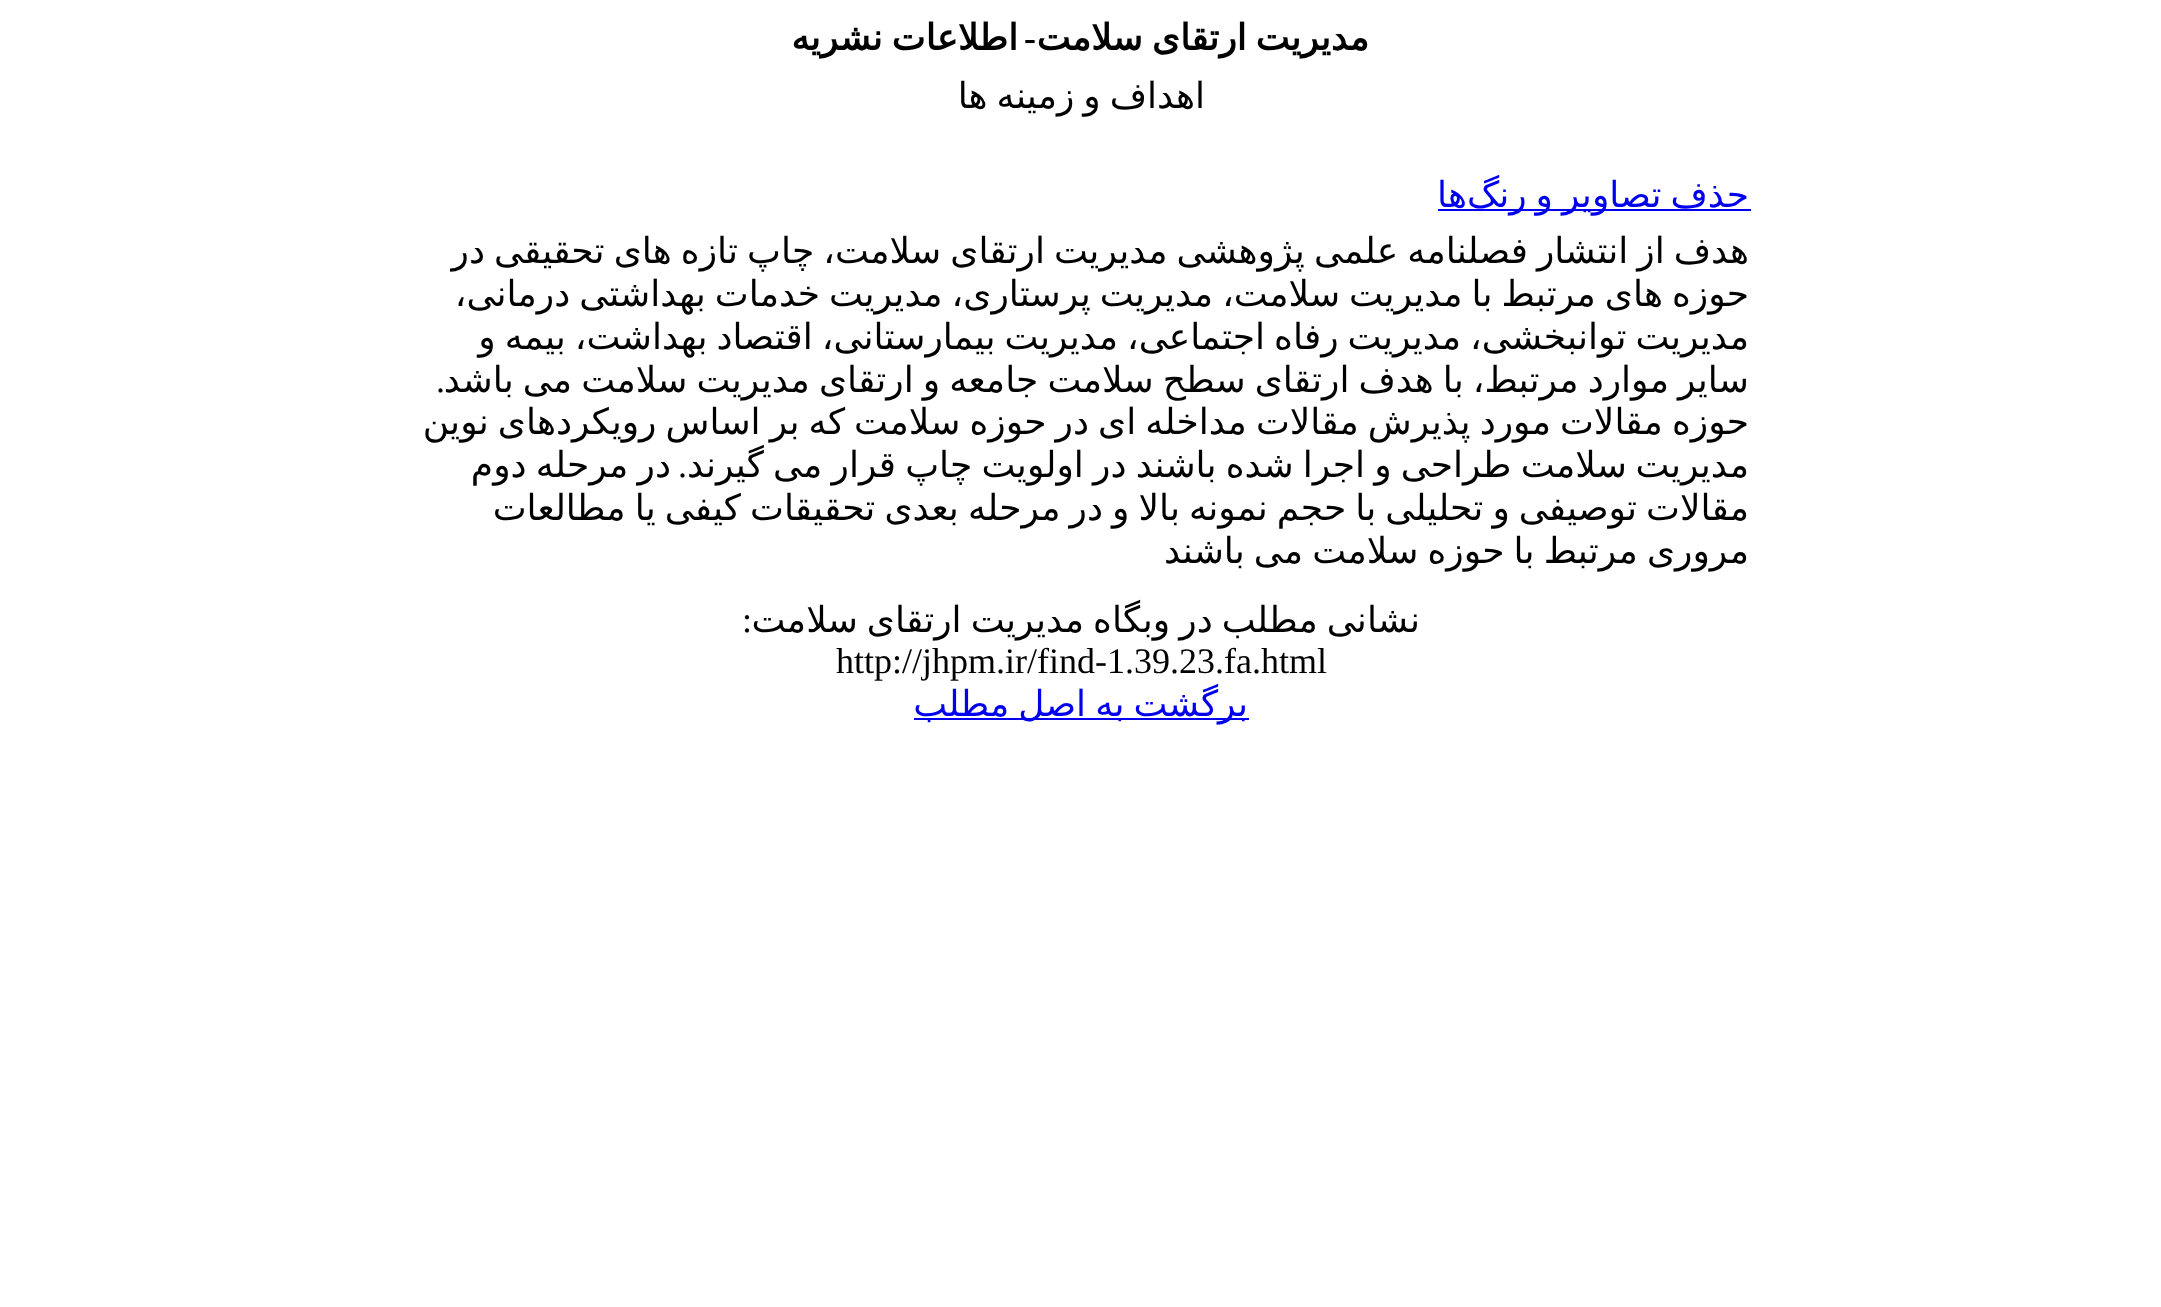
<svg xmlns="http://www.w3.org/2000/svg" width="2161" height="1307">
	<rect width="100%" height="100%" fill="#FFFFFF" />
	<text x="1369" y="50" word-spacing="-2.4" font-family="DejaVu Sans" font-size="36" font-weight="700" direction="rtl" fill="#000000">مدیریت ارتقای سلامت</text>
	<text x="1036" y="50" font-family="Liberation Serif" font-size="36" font-weight="700" direction="rtl" fill="#000000">-</text>
	<text x="1018" y="50" word-spacing="-2.4" font-family="DejaVu Sans" font-size="36" font-weight="700" direction="rtl" fill="#000000">اطلاعات نشریه</text>
	<text x="1205" y="108" word-spacing="-2.4" font-family="DejaVu Sans" font-size="36" direction="rtl" fill="#000000">اهداف و زمینه ها</text>
	<rect x="1438" y="209" width="313" height="2" fill="#0000EE" />
	<g font-family="DejaVu Sans" font-size="36" direction="rtl" fill="#0000EE">
		<text x="1749" y="207" word-spacing="-2.4">حذف تصاویر و رنگ</text>
		<text x="1467" y="207">ها</text>
	</g>
	<g font-family="DejaVu Sans" font-size="36" direction="rtl" fill="#000000">
		<text x="1749" y="263" word-spacing="-2.4">هدف از انتشار فصلنامه علمی پژوهشی مدیریت ارتقای سلامت، چاپ تازه های تحقیقی در</text>
		<text x="1749" y="306">حوزه</text>
		<text x="1663" y="306" word-spacing="-2.4">های مرتبط با مدیریت سلامت، مدیریت پرستاری، مدیریت خدمات بهداشتی درمانی،</text>
		<text x="1749" y="349" word-spacing="-2.4">مدیریت توانبخشی، مدیریت رفاه اجتماعی، مدیریت بیمارستانی، اقتصاد بهداشت، بیمه و</text>
		<text x="1749" y="392" word-spacing="-2.4">سایر موارد مرتبط، با هدف ارتقای سطح سلامت جامعه و ارتقای مدیریت سلامت می باشد</text>
	</g>
	<text x="445" y="392" font-family="Liberation Serif" font-size="36" direction="rtl" fill="#000000">.</text>
	<g font-family="DejaVu Sans" font-size="36" direction="rtl" fill="#000000">
		<text x="1749" y="434" word-spacing="-2.4">حوزه مقالات مورد پذیرش مقالات مداخله ای در حوزه سلامت که بر اساس رویکردهای نوین</text>
		<text x="1749" y="477">مدیریت</text>
		<text x="1627" y="477" word-spacing="-2.25">سلامت طراحی و اجرا شده باشند در اولویت چاپ قرار می گیرند</text>
	</g>
	<text x="687" y="477" font-family="Liberation Serif" font-size="36" direction="rtl" fill="#000000">.</text>
	<g font-family="DejaVu Sans" font-size="36" direction="rtl" fill="#000000">
		<text x="671" y="477" word-spacing="-2.25">در مرحله دوم</text>
		<text x="1749" y="520" word-spacing="-2.4">مقالات توصیفی و تحلیلی با حجم نمونه بالا و در مرحله بعدی تحقیقات کیفی یا مطالعات</text>
		<text x="1749" y="563" word-spacing="-2.4">مروری مرتبط با حوزه سلامت می باشند</text>
		<text x="1420" y="632" word-spacing="-2.4">نشانی مطلب در وبگاه مدیریت ارتقای سلامت</text>
	</g>
	<text x="752" y="632" font-family="Liberation Serif" font-size="36" direction="rtl" fill="#000000">:</text>
	<text x="836" y="673" font-family="Liberation Serif" font-size="36" fill="#000000">http://jhpm.ir/find-1.39.23.fa.html</text>
	<rect x="914" y="718" width="335" height="2" fill="#0000EE" />
	<text x="1248" y="716" word-spacing="-2.4" font-family="DejaVu Sans" font-size="36" direction="rtl" fill="#0000EE">برگشت به اصل مطلب</text>
</svg>
